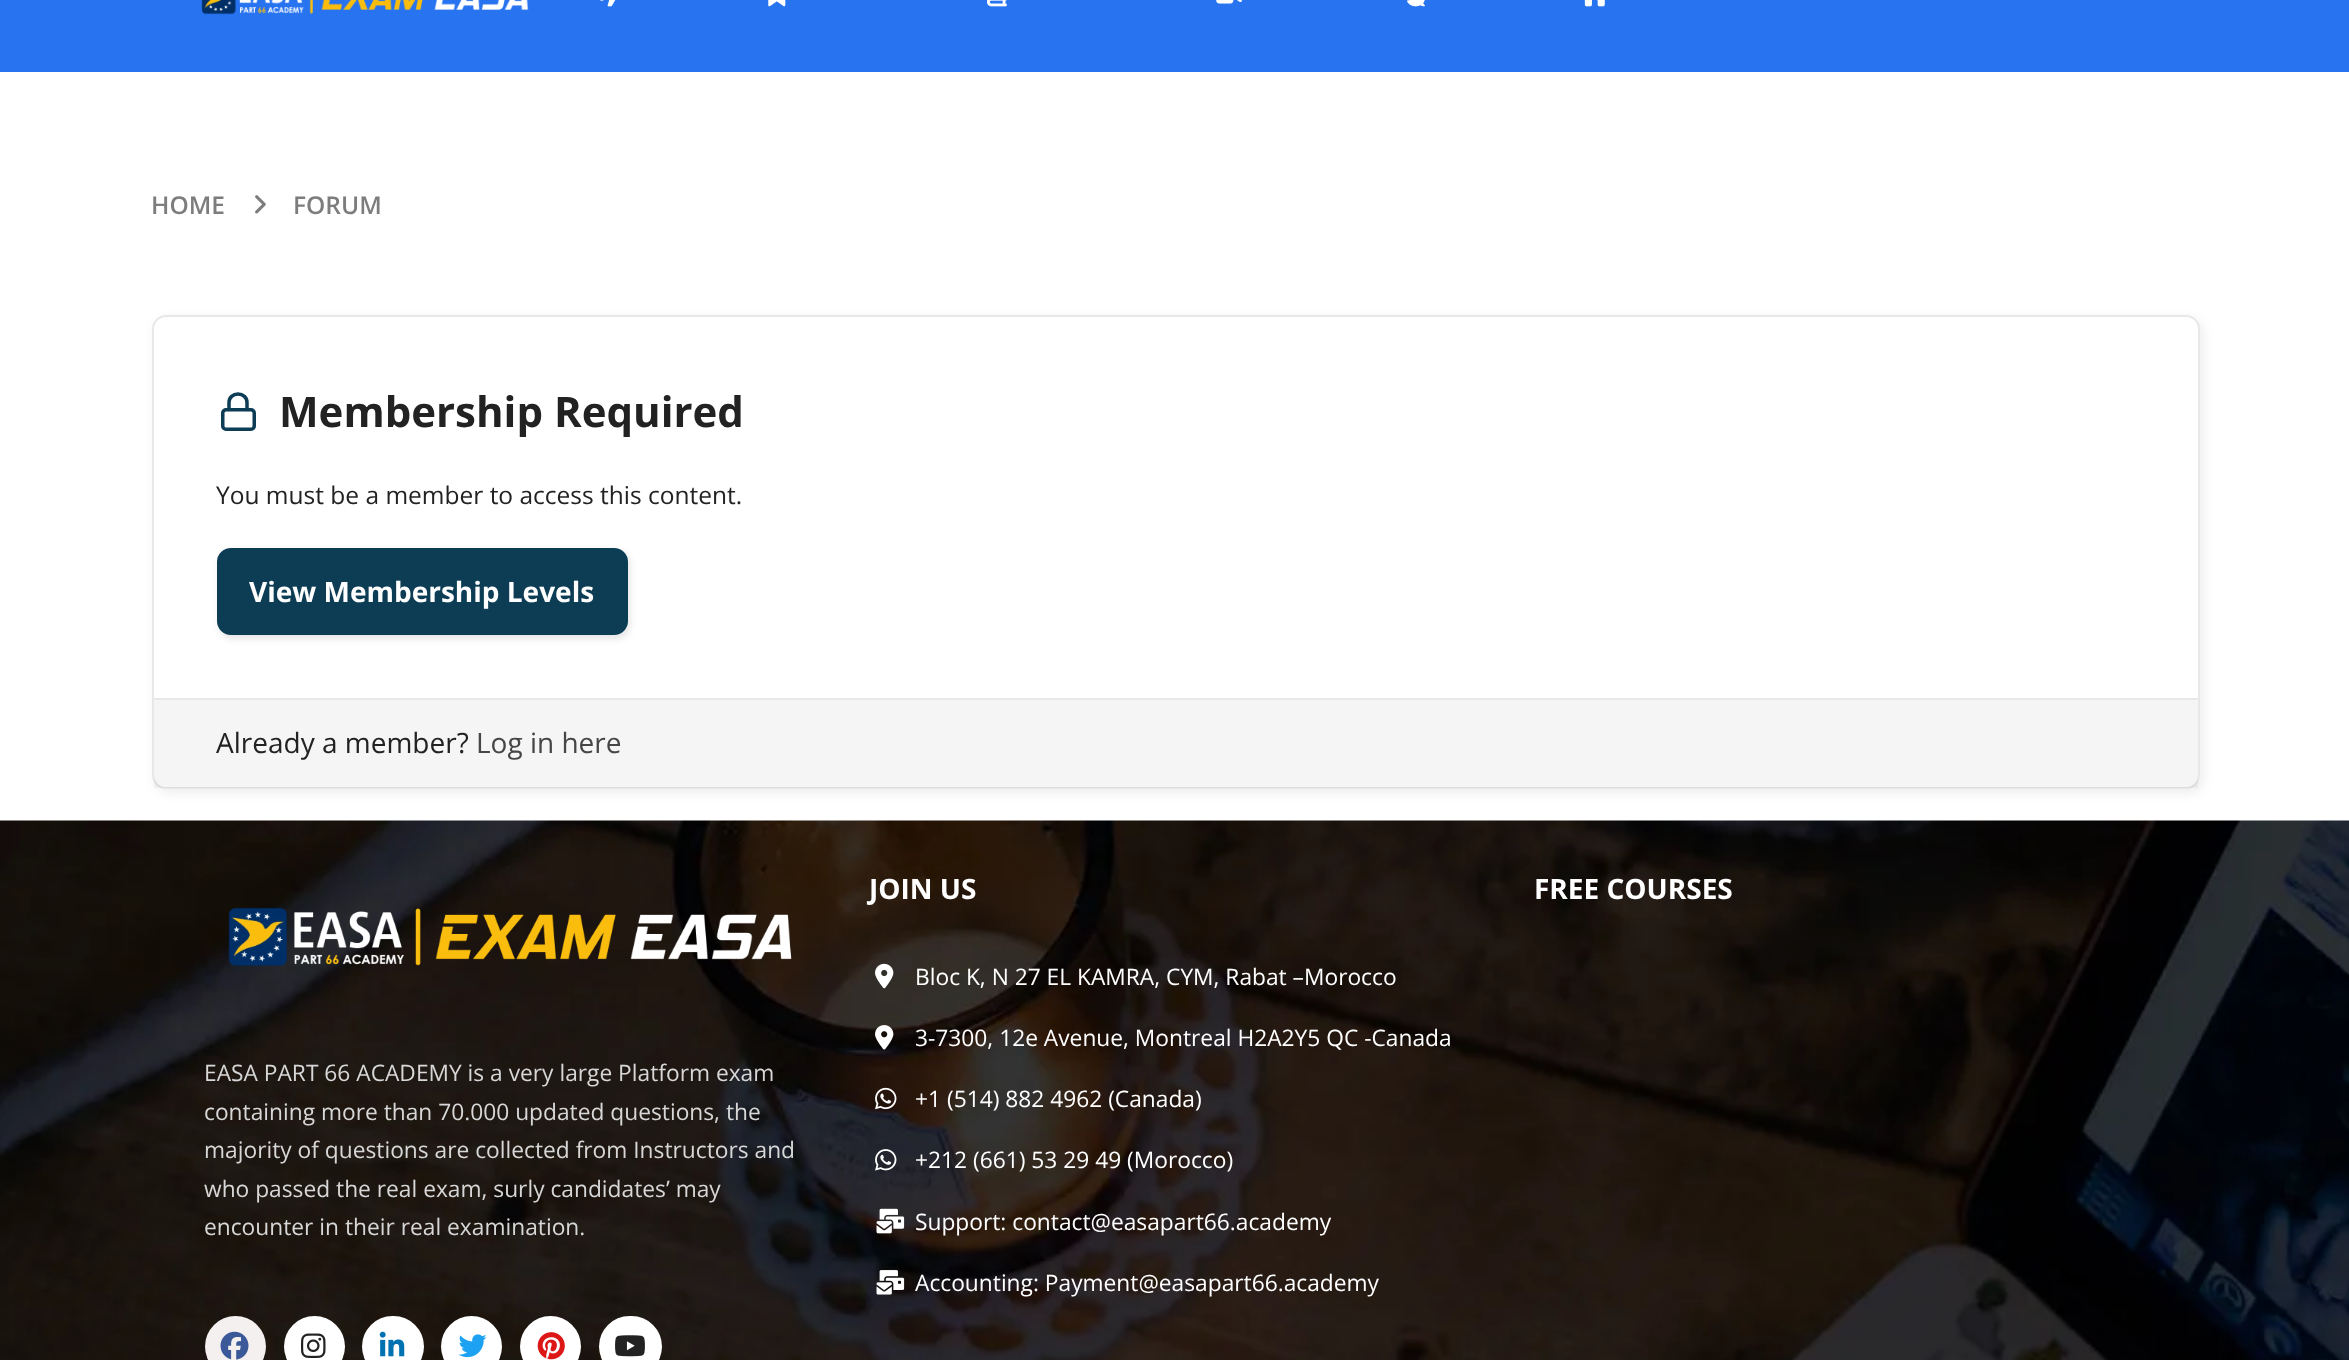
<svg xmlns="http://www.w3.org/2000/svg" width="2349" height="1360">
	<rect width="100%" height="100%" fill="#FFFFFF" />
	<rect x="0" y="0" width="2349" height="72" fill="#2874F0" />
	<image x="201" y="0" width="328" height="15" href="assets/img1.png" />
	<image x="600" y="0" width="16" height="7" href="assets/img2.png" />
	<image x="768" y="0" width="18" height="7" href="assets/img3.png" />
	<image x="987" y="0" width="20" height="7" href="assets/img4.png" />
	<image x="1216" y="0" width="26" height="4" href="assets/img5.png" />
	<image x="1406" y="0" width="19" height="7" href="assets/img6.png" />
	<image x="1584" y="0" width="21" height="7" href="assets/img7.png" />
	<text x="151" y="214" font-family="Open Sans" font-size="24.5" font-weight="600" fill="#7D7D7D">HOME</text>
	<image x="255" y="195" width="11" height="19" href="assets/img8.png" />
	<text x="293" y="214" font-family="Open Sans" font-size="24.5" font-weight="600" fill="#7D7D7D">FORUM</text>
	<rect x="156" y="319" width="2047" height="474" rx="14" fill="#000000" fill-opacity="0.07" filter="blur(6px)" />
	<rect x="153" y="316" width="2046" height="472" rx="13" fill="#FFFFFF" stroke="#E8E8E8" stroke-width="2" />
	<rect x="222.75" y="409.75" width="31.5" height="19.5" rx="3.25" fill="none" stroke="#0C3D54" stroke-width="3.5" />
	<path d="M229 409.5V402.5C229 397.5 233 394 238 394C243 394 247 397.5 247 402.5V409.5" fill="none" stroke="#0C3D54" stroke-width="3.5" stroke-linecap="round" stroke-linejoin="round" />
	<text x="279" y="427" font-family="Open Sans" font-size="42" font-weight="700" fill="#222222">Membership Required</text>
	<text x="216" y="504" font-family="Open Sans" font-size="24.5" fill="#222222">You must be a member to access this content.</text>
	<rect x="219" y="551" width="411" height="88" rx="14" fill="#000000" fill-opacity="0.1" filter="blur(3.5px)" />
	<rect x="218" y="549" width="409" height="85" rx="13" fill="#0C3D54" stroke="#0C3D54" stroke-width="2" />
	<text x="249" y="602" font-family="Open Sans" font-size="28" font-weight="700" fill="#FFFFFF">View Membership Levels</text>
	<rect x="154" y="700" width="2044" height="88" fill="#000000" fill-opacity="0.04" />
	<rect x="154" y="698" width="2044" height="2" fill="#E8E8E8" />
	<text x="216" y="753" font-family="Open Sans" font-size="28" fill="#222222">Already a member?</text>
	<text x="476" y="753" font-family="Open Sans" font-size="28" fill="#464646">Log in here</text>
	<image x="0" y="820" width="2349" height="540" href="assets/img9.png" />
	<text x="869" y="899" font-family="Open Sans" font-size="28" font-weight="700" fill="#FFFFFF">JOIN US</text>
	<image x="875" y="963" width="19" height="26" href="assets/img10.png" />
	<text x="915" y="985" font-family="Open Sans" font-size="22.75" fill="#FFFFFF">Bloc K, N 27 EL KAMRA, CYM, Rabat –Morocco</text>
	<image x="875" y="1025" width="19" height="25" href="assets/img11.png" />
	<text x="915" y="1046" font-family="Open Sans" font-size="22.75" fill="#FFFFFF">3-7300, 12e Avenue, Montreal H2A2Y5 QC -Canada</text>
	<image x="875" y="1087" width="22" height="23" href="assets/img12.png" />
	<text x="915" y="1107" font-family="Open Sans" font-size="22.75" fill="#FFFFFF">+1 (514) 882 4962 (Canada)</text>
	<image x="875" y="1149" width="22" height="22" href="assets/img13.png" />
	<text x="915" y="1168" font-family="Open Sans" font-size="22.75" fill="#FFFFFF">+212 (661) 53 29 49 (Morocco)</text>
	<image x="876" y="1208" width="29" height="26" href="assets/img14.png" />
	<text x="915" y="1230" font-family="Open Sans" font-size="22.75" fill="#FFFFFF">Support: contact@easapart66.academy</text>
	<image x="876" y="1270" width="29" height="25" href="assets/img15.png" />
	<text x="915" y="1291" font-family="Open Sans" font-size="22.75" fill="#FFFFFF">Accounting: Payment@easapart66.academy</text>
	<text x="1534" y="899" font-family="Open Sans" font-size="28" font-weight="700" fill="#FFFFFF">FREE COURSES</text>
	<image x="228" y="907" width="564" height="59" href="assets/img16.png" />
	<g font-family="Open Sans" font-size="22.75" fill="#D7D7D7">
		<text x="204" y="1081">EASA PART 66 ACADEMY is a very large Platform exam</text>
		<text x="204" y="1120">containing more than 70.000 updated questions, the</text>
		<text x="204" y="1158">majority of questions are collected from Instructors and</text>
		<text x="204" y="1197">who passed the real exam, surly candidates’ may</text>
		<text x="204" y="1235">encounter in their real examination.</text>
	</g>
	<circle cx="235.5" cy="1346.5" r="30.5" fill="#F4F0F0" />
	<image x="220" y="1331" width="29" height="29" href="assets/img17.png" />
	<circle cx="314.5" cy="1346.5" r="30.5" fill="#FFFFFF" />
	<image x="301" y="1333" width="25" height="25" href="assets/img18.png" />
	<rect x="362" y="1316" width="62" height="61" rx="30.5" fill="#FFFFFF" />
	<image x="379" y="1331" width="26" height="26" href="assets/img19.png" />
	<circle cx="471.5" cy="1346.5" r="30.5" fill="#FFFFFF" />
	<image x="458" y="1334" width="29" height="24" href="assets/img20.png" />
	<circle cx="550.5" cy="1346.5" r="30.5" fill="#FFFFFF" />
	<image x="537" y="1332" width="28" height="28" href="assets/img21.png" />
	<rect x="599" y="1316" width="63" height="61" rx="30.5" fill="#FFFFFF" />
	<image x="615" y="1335" width="30" height="22" href="assets/img22.png" />
</svg>
